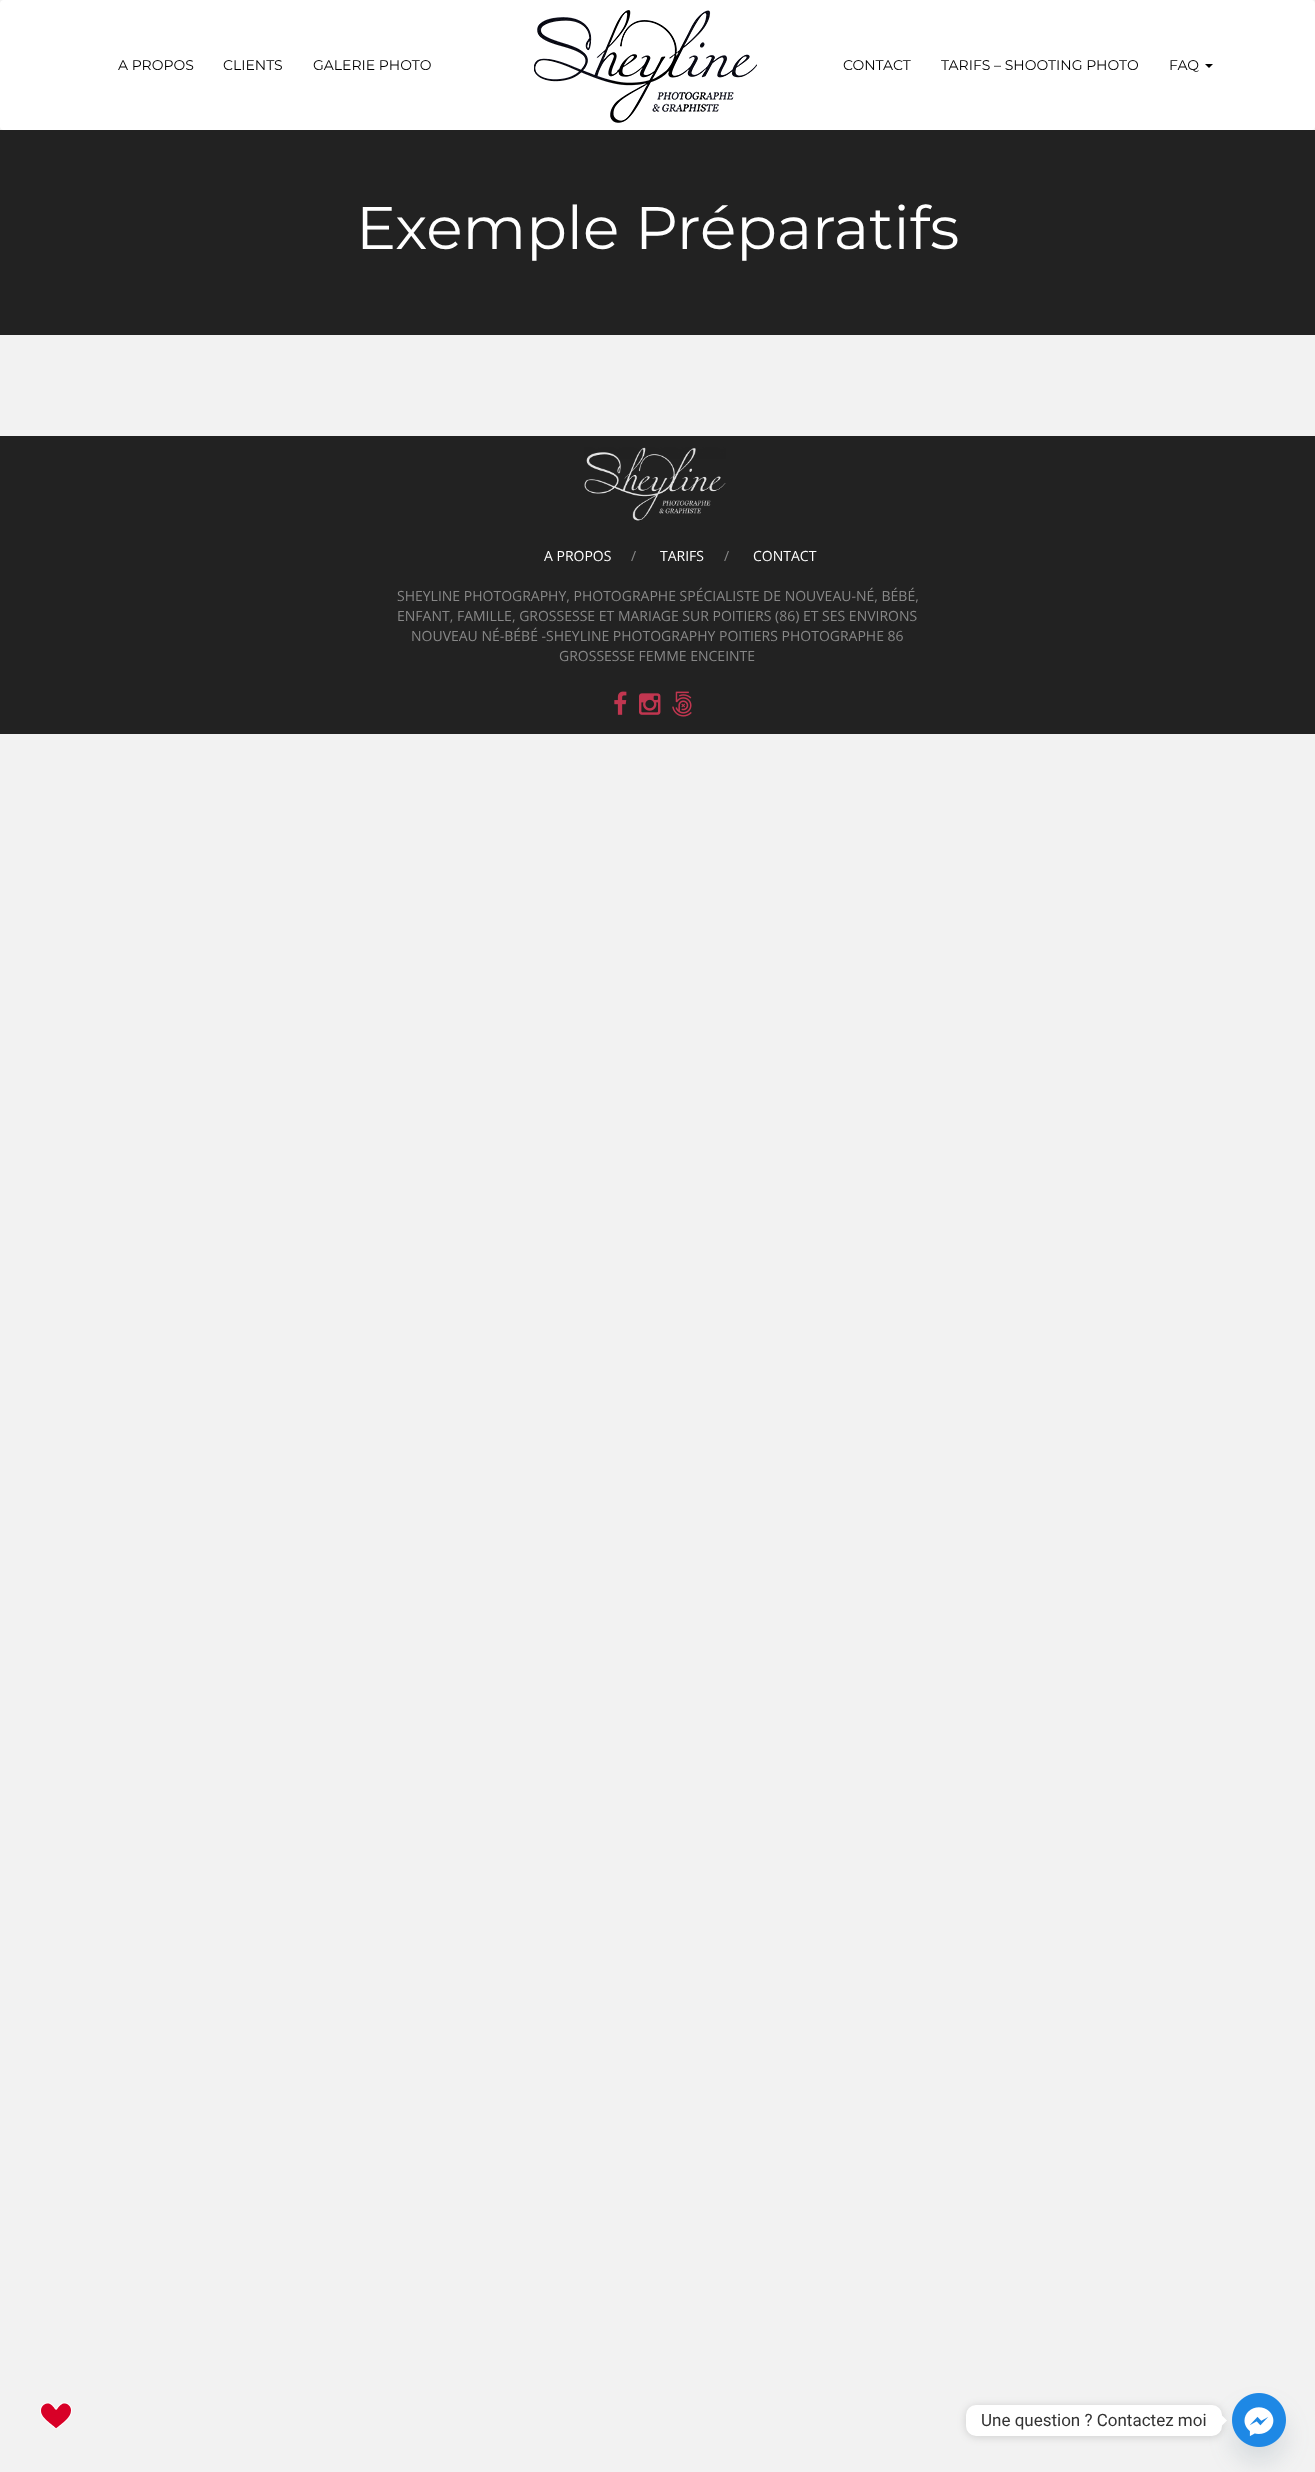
<svg xmlns="http://www.w3.org/2000/svg" width="1315" height="2472">
	<rect width="100%" height="100%" fill="#F2F2F2" />
	<rect x="0" y="0" width="1315" height="130" rx="4" fill="#FFFFFF" />
	<image x="534" y="10" width="223" height="113" href="assets/img1.png" />
	<g font-family="Montserrat" font-size="14" font-weight="100" fill="#000000">
		<text x="118" y="70">A PROPOS</text>
		<text x="223" y="70">CLIENTS</text>
		<text x="313" y="70">GALERIE PHOTO</text>
		<text x="843" y="70">CONTACT</text>
		<text x="941" y="70">TARIFS – SHOOTING PHOTO</text>
		<text x="1169" y="70">FAQ</text>
	</g>
	<path d="M1205 64H1213L1209 68Z" fill="#000000" />
	<rect x="0" y="130" width="1315" height="205" fill="#222222" />
	<text x="356" y="249" font-family="Montserrat" font-size="60" font-weight="100" fill="#FFFFFF">Exemple Préparatifs</text>
	<rect x="0" y="436" width="1315" height="298" fill="#222222" />
	<image x="584" y="447" width="142" height="74" href="assets/img2.png" />
	<text x="544" y="561" font-family="Open Sans" font-size="14" fill="#FFFFFF">A PROPOS</text>
	<text x="631" y="561" font-family="Open Sans" font-size="14" fill="#888888">/</text>
	<text x="660" y="561" font-family="Open Sans" font-size="14" fill="#FFFFFF">TARIFS</text>
	<text x="724" y="561" font-family="Open Sans" font-size="14" fill="#888888">/</text>
	<text x="753" y="561" font-family="Open Sans" font-size="14" fill="#FFFFFF">CONTACT</text>
	<g font-family="Open Sans" font-size="14" fill="#888888">
		<text x="397" y="601">SHEYLINE PHOTOGRAPHY, PHOTOGRAPHE SPÉCIALISTE DE NOUVEAU-NÉ, BÉBÉ,</text>
		<text x="397" y="621">ENFANT, FAMILLE, GROSSESSE ET MARIAGE SUR POITIERS (86) ET SES ENVIRONS</text>
		<text x="411" y="641">NOUVEAU NÉ-BÉBÉ -SHEYLINE PHOTOGRAPHY POITIERS PHOTOGRAPHE 86</text>
		<text x="559" y="661">GROSSESSE FEMME ENCEINTE</text>
	</g>
	<image x="614" y="691" width="13" height="24" href="assets/img3.png" />
	<image x="639" y="693" width="22" height="22" href="assets/img4.png" />
	<image x="672" y="691" width="20" height="26" href="assets/img5.png" />
	<image x="40" y="2402" width="32" height="27" href="assets/img6.png" />
	<rect x="1232" y="2409" width="54" height="54" rx="27" fill="#49687E" fill-opacity="0.16" filter="blur(12px)" />
	<image x="1232" y="2393" width="54" height="54" href="assets/img7.png" />
	<rect x="966" y="2406" width="256" height="31" rx="10" fill="#000000" fill-opacity="0.15" filter="blur(4px)" />
	<rect x="966" y="2405" width="256" height="31" rx="10" fill="#FFFFFF" />
	<text x="981" y="2426" font-family="Roboto" font-size="17" fill="#333333">Une question ? Contactez moi</text>
	<path d="M1222 2425.5V2415.5L1227 2420.5Z" fill="#FFFFFF" />
</svg>
